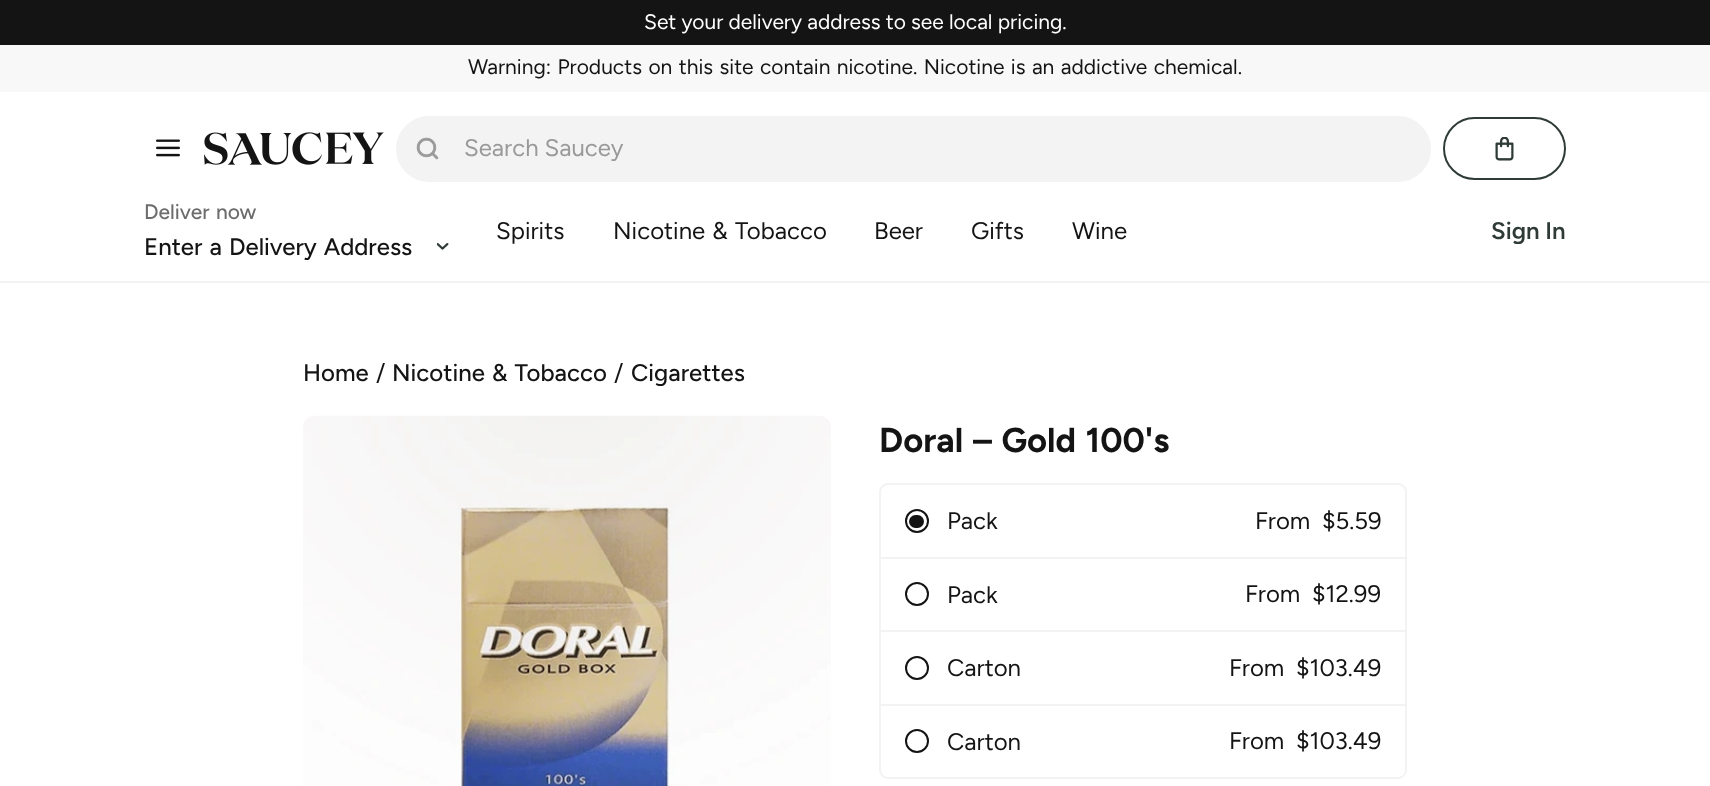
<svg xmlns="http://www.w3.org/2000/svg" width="1710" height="786">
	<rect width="100%" height="100%" fill="#FFFFFF" />
	<rect x="0" y="0" width="1710" height="45" fill="#141414" />
	<text x="644" y="29" font-family="Figtree" font-size="21" fill="#FFFFFF">Set your delivery address to see local pricing.</text>
	<rect x="0" y="45" width="1710" height="47" fill="#F8F8F8" />
	<text x="468" y="74" word-spacing="1.25" font-family="Figtree" font-size="21" fill="#141414">Warning: Products on this site contain nicotine. Nicotine is an addictive chemical.</text>
	<rect x="0" y="281" width="1710" height="2" fill="#F3F3F3" />
	<image x="156" y="139" width="24" height="18" href="assets/img1.png" />
	<image x="204" y="132" width="180" height="33" href="assets/img2.png" />
	<rect x="397" y="117" width="1033" height="64" rx="32" fill="#F3F3F3" stroke="#F3F3F3" stroke-width="2" />
	<image x="416" y="137" width="23" height="23" href="assets/img3.png" />
	<text x="464" y="156" font-family="Figtree" font-size="24" fill="#999999">Search Saucey</text>
	<rect x="1444" y="118" width="121" height="61" rx="30.5" fill="none" stroke="#2F3B37" stroke-width="2" />
	<image x="1495" y="137" width="19" height="24" href="assets/img4.png" />
	<text x="144" y="219" word-spacing="1.25" font-family="Figtree" font-size="21" font-weight="500" fill="#6D6D6D">Deliver now</text>
	<text x="144" y="255" word-spacing="1.25" font-family="Figtree" font-size="24" font-weight="500" fill="#141414">Enter a Delivery Address</text>
	<image x="437" y="243" width="12" height="7" href="assets/img5.png" />
	<g font-family="Figtree" font-size="24" fill="#141414">
		<text x="496" y="239">Spirits</text>
		<text x="613" y="239" word-spacing="1.25">Nicotine &amp; Tobacco</text>
		<text x="874" y="239">Beer</text>
		<text x="971" y="239">Gifts</text>
		<text x="1072" y="239">Wine</text>
	</g>
	<text x="1491" y="239" font-family="Figtree" font-size="24" font-weight="600" fill="#2F3B37">Sign In</text>
	<text x="303" y="381" font-family="Figtree" font-size="24" font-weight="500" fill="#141414">Home</text>
	<text x="376" y="381" font-family="Figtree" font-size="24" fill="#141414">/</text>
	<text x="392" y="381" word-spacing="1.25" font-family="Figtree" font-size="24" font-weight="500" fill="#141414">Nicotine &amp; Tobacco</text>
	<text x="614" y="381" font-family="Figtree" font-size="24" fill="#141414">/</text>
	<text x="631" y="381" font-family="Figtree" font-size="24" font-weight="500" fill="#141414">Cigarettes</text>
	<image x="303" y="415" width="528" height="371" href="assets/img6.png" />
	<g font-family="Figtree" font-size="34.5" font-weight="700" fill="#141414">
		<text x="879" y="452">Doral</text>
		<text x="973" y="452" word-spacing="1.25">– Gold 100's</text>
	</g>
	<rect x="880" y="484" width="526" height="294" rx="8" fill="none" stroke="#F3F3F3" stroke-width="2" />
	<rect x="881" y="557" width="525" height="2" fill="#F3F3F3" />
	<circle cx="917" cy="521" r="11" fill="none" stroke="#141414" stroke-width="2" />
	<rect x="909" y="515" width="15" height="13" rx="6.5" fill="#141414" />
	<g font-family="Figtree" font-size="24" fill="#141414">
		<text x="947" y="529">Pack</text>
		<text x="1255" y="529">From</text>
		<text x="1322" y="529">$5.59</text>
	</g>
	<rect x="881" y="630" width="525" height="2" fill="#F3F3F3" />
	<circle cx="917" cy="594" r="11" fill="none" stroke="#141414" stroke-width="2" />
	<g font-family="Figtree" font-size="24" fill="#141414">
		<text x="947" y="603">Pack</text>
		<text x="1245" y="602">From</text>
		<text x="1312" y="602">$12.99</text>
	</g>
	<rect x="881" y="704" width="525" height="2" fill="#F3F3F3" />
	<circle cx="917" cy="668" r="11" fill="none" stroke="#141414" stroke-width="2" />
	<g font-family="Figtree" font-size="24" fill="#141414">
		<text x="947" y="676">Carton</text>
		<text x="1229" y="676">From</text>
		<text x="1296" y="676">$103.49</text>
	</g>
	<circle cx="917" cy="741" r="11" fill="none" stroke="#141414" stroke-width="2" />
	<g font-family="Figtree" font-size="24" fill="#141414">
		<text x="947" y="750">Carton</text>
		<text x="1229" y="749">From</text>
		<text x="1296" y="749">$103.49</text>
	</g>
</svg>
